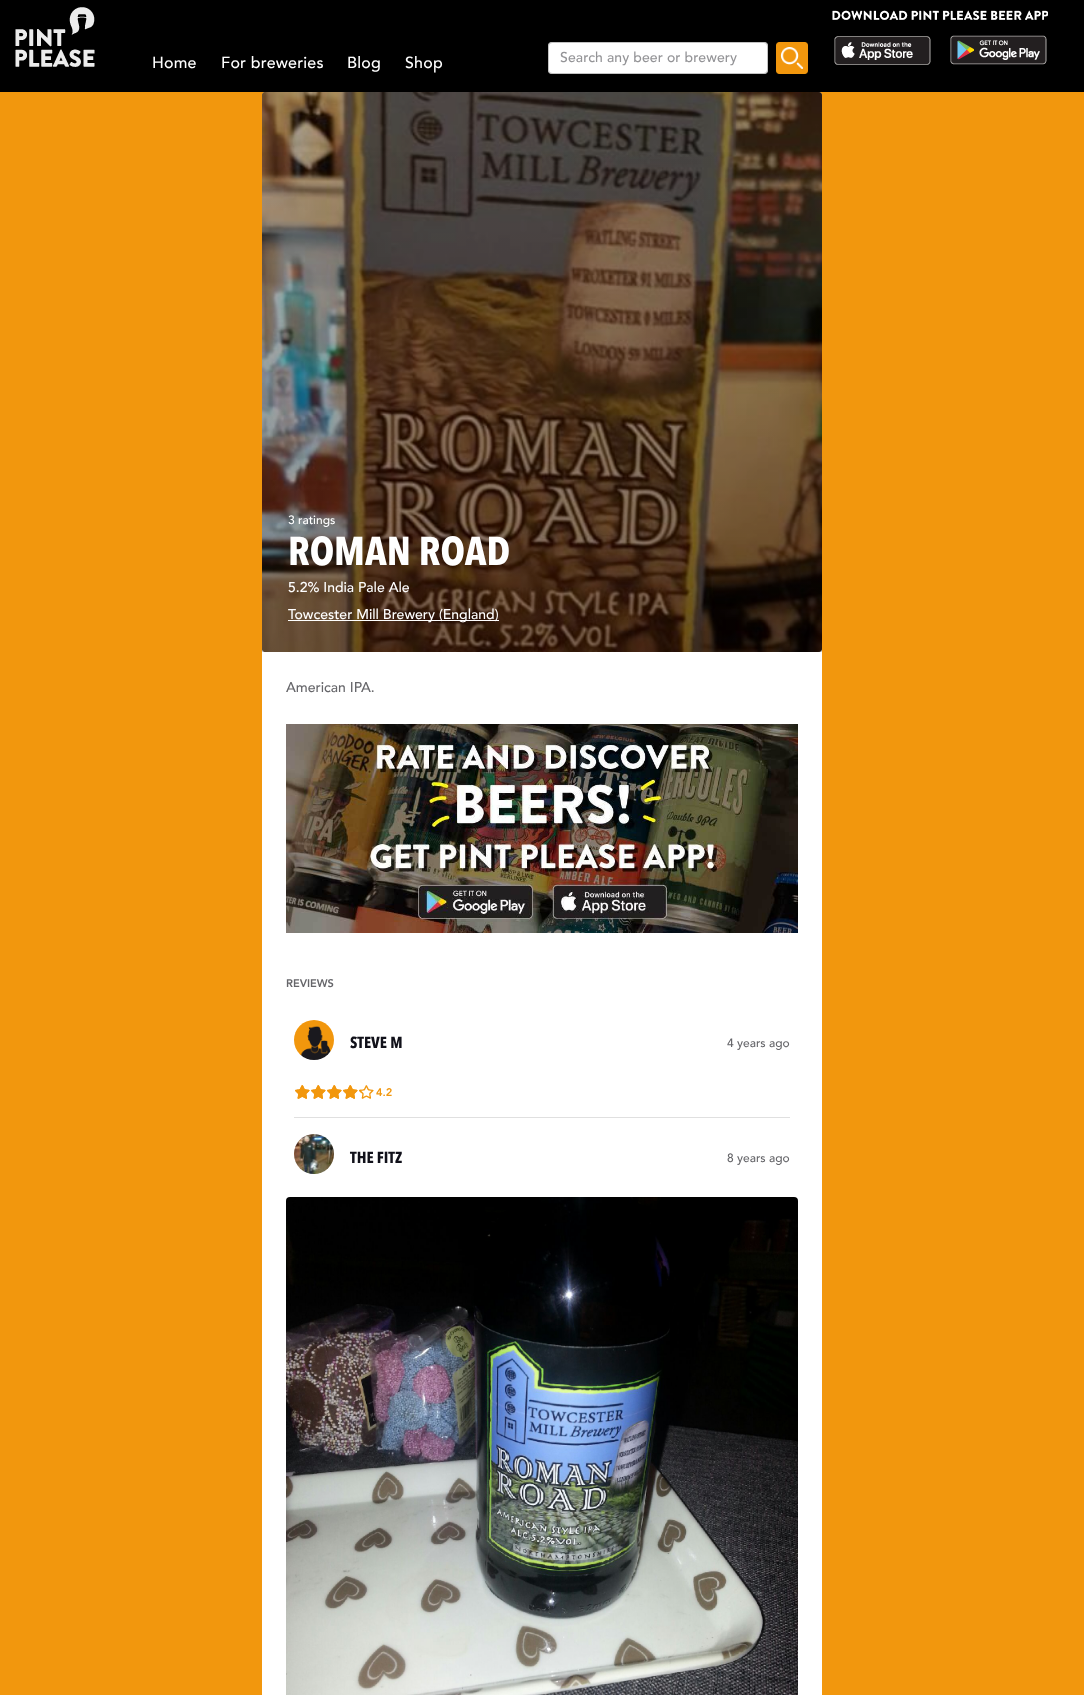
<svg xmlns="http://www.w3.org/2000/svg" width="1084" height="1695">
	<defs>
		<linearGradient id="g1" gradientUnits="userSpaceOnUse" x1="542" y1="92" x2="542" y2="652"><stop offset="0" stop-color="#000000" stop-opacity="0" /><stop offset="1" stop-color="#000000" stop-opacity="0.2" /></linearGradient>
	</defs>
	<rect width="100%" height="100%" fill="#F2970D" />
	<rect x="0" y="0" width="1084" height="92" fill="#000000" />
	<image x="15" y="7" width="80" height="60" href="assets/img1.png" />
	<g font-family="Avenir" font-size="16" font-weight="500" letter-spacing="0.2" fill="#FFFFFF">
		<text x="152" y="68">Home</text>
		<text x="221" y="68">For breweries</text>
		<text x="347" y="68">Blog</text>
		<text x="405" y="68">Shop</text>
	</g>
	<rect x="548" y="42" width="220" height="32" rx="4" fill="#FFFFFF" />
	<rect x="548.5" y="42.5" width="219" height="31" rx="3.5" fill="none" stroke="#000000" stroke-opacity="0.24" />
	<text x="560" y="62" font-family="Avenir" font-size="14" font-weight="500" letter-spacing="0.1" fill="#949497">Search any beer or brewery</text>
	<image x="776" y="42" width="32" height="32" href="assets/img2.png" />
	<image x="832" y="10" width="216" height="10" href="assets/img3.png" />
	<image x="834" y="36" width="97" height="29" href="assets/img4.png" />
	<image x="950" y="35" width="97" height="30" href="assets/img5.png" />
	<rect x="262" y="92" width="560" height="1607" rx="4" fill="#FFFFFF" />
	<rect x="262" y="92" width="560" height="560" rx="4" fill="#000000" />
	<image x="262" y="92" width="560" height="560" href="assets/img6.png" />
	<rect x="262" y="152" width="560" height="500" fill="url(#g1)" />
	<text x="288" y="524" font-family="Avenir" font-size="12" font-weight="500" fill="#FFFFFF">3 ratings</text>
	<text x="288" y="565" font-family="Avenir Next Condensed" font-size="40" font-weight="700" fill="#FFFFFF">ROMAN ROAD</text>
	<text x="288" y="592" font-family="Avenir" font-size="14" font-weight="500" fill="#FFFFFF">5.2% India Pale Ale</text>
	<rect x="288" y="620" width="211" height="1" fill="#FFFFFF" />
	<text x="288" y="619" font-family="Avenir" font-size="14" font-weight="500" fill="#FFFFFF">Towcester Mill Brewery (England)</text>
	<text x="286" y="692" font-family="Avenir" font-size="14" font-weight="500" fill="#66666A">American IPA.</text>
	<image x="286" y="724" width="512" height="209" href="assets/img7.png" />
	<text x="286" y="987" font-family="Avenir" font-size="11" font-weight="900" fill="#66666A">REVIEWS</text>
	<image x="294" y="1020" width="40" height="40" href="assets/img8.png" />
	<text x="350" y="1048" font-family="Avenir Next Condensed" font-size="16" font-weight="700" fill="#11111A">STEVE M</text>
	<text x="727" y="1047" font-family="Avenir" font-size="12" font-weight="500" fill="#66666A">4 years ago</text>
	<image x="295" y="1085" width="79" height="14" href="assets/img9.png" />
	<image x="295" y="1085" width="66" height="14" href="assets/img10.png" />
	<text x="376" y="1096" font-family="Avenir" font-size="11" font-weight="900" fill="#F2970D">4.2</text>
	<rect x="294" y="1117" width="496" height="1" fill="#E0E0E0" />
	<image x="294" y="1134" width="40" height="40" href="assets/img11.png" />
	<text x="350" y="1163" font-family="Avenir Next Condensed" font-size="16" font-weight="700" fill="#11111A">THE FITZ</text>
	<text x="727" y="1162" font-family="Avenir" font-size="12" font-weight="500" fill="#66666A">8 years ago</text>
	<image x="286" y="1197" width="512" height="498" href="assets/img12.png" />
</svg>
